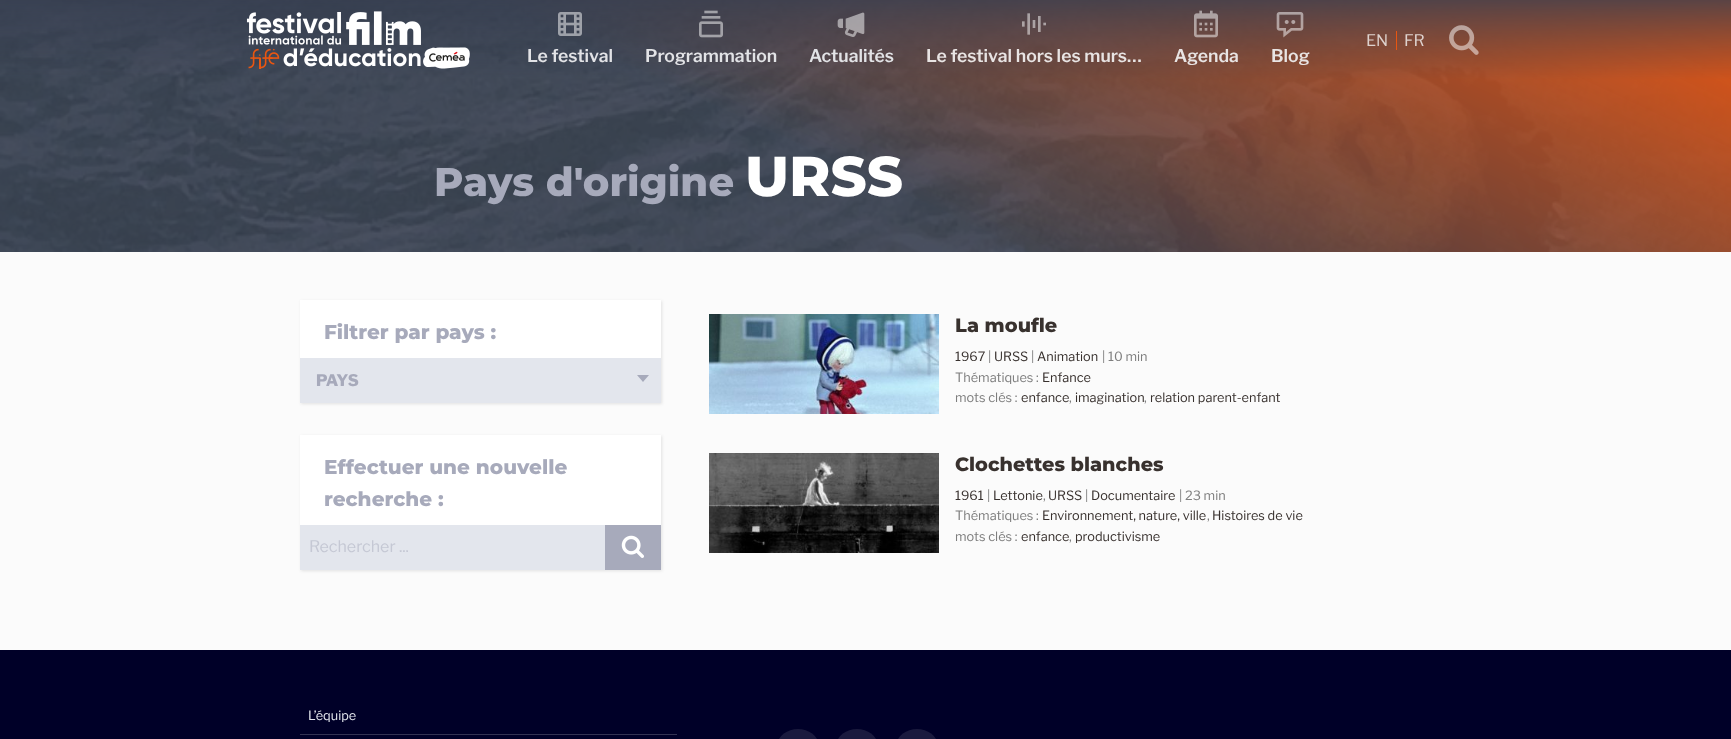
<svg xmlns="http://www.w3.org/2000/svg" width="1731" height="739">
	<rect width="100%" height="100%" fill="#FBFBFB" />
	<image x="0" y="0" width="1731" height="252" href="assets/img9.png" />
	<image x="246" y="11" width="224" height="58" href="assets/img1.png" />
	<text x="1366" y="46" font-family="Libre Franklin" font-size="16" fill="#DED2CE">EN</text>
	<rect x="1396" y="31" width="1" height="19" fill="#E85611" />
	<text x="1404" y="46" font-family="Libre Franklin" font-size="16" fill="#DED2CE">FR</text>
	<image x="1449" y="25" width="30" height="30" href="assets/img2.png" />
	<image x="558" y="12" width="24" height="24" href="assets/img3.png" />
	<text x="527" y="62" font-family="Libre Franklin" font-size="17.6" font-weight="600" fill="#E2E3E6">Le festival</text>
	<image x="699" y="10" width="24" height="28" href="assets/img4.png" />
	<text x="645" y="62" font-family="Libre Franklin" font-size="17.6" font-weight="600" fill="#E2E3E6">Programmation</text>
	<image x="837" y="12" width="28" height="25" href="assets/img5.png" />
	<text x="809" y="62" font-family="Libre Franklin" font-size="17.6" font-weight="600" fill="#E2E3E6">Actualités</text>
	<image x="1022" y="13" width="24" height="22" href="assets/img6.png" />
	<text x="926" y="62" font-family="Libre Franklin" font-size="17.6" font-weight="600" fill="#E8E4E3">Le festival hors les murs…</text>
	<image x="1194" y="10" width="24" height="28" href="assets/img7.png" />
	<text x="1174" y="62" font-family="Libre Franklin" font-size="17.6" font-weight="600" fill="#E8E4E3">Agenda</text>
	<image x="1276" y="12" width="28" height="26" href="assets/img8.png" />
	<text x="1271" y="62" font-family="Libre Franklin" font-size="17.6" font-weight="600" fill="#E8E4E3">Blog</text>
	<text x="434" y="196" font-family="Montserrat" font-size="40" font-weight="800" fill="#A7AABB">Pays d'origine</text>
	<text x="745" y="196" font-family="Montserrat" font-size="56" font-weight="800" fill="#FFFFFF">URSS</text>
	<rect x="301" y="301" width="361" height="103" fill="#000000" fill-opacity="0.1" filter="blur(1.5px)" />
	<rect x="300" y="300" width="361" height="58" fill="#FFFFFF" />
	<text x="324" y="339" font-family="Montserrat" font-size="20" font-weight="800" fill="#A7AABB">Filtrer par pays :</text>
	<rect x="300" y="358" width="361" height="45" fill="#E3E6ED" />
	<text x="316" y="386" font-family="Libre Franklin" font-size="16" font-weight="800" fill="#A7AABB">PAYS</text>
	<path d="M637 375H649L643 382Z" fill="#A7AABB" />
	<rect x="301" y="436" width="361" height="135" fill="#000000" fill-opacity="0.1" filter="blur(1.5px)" />
	<rect x="300" y="435" width="361" height="90" fill="#FFFFFF" />
	<g font-family="Montserrat" font-size="20" font-weight="800" fill="#A7AABB">
		<text x="324" y="474">Effectuer une nouvelle</text>
		<text x="324" y="506">recherche :</text>
	</g>
	<rect x="300" y="525" width="305" height="45" fill="#E3E6ED" />
	<text x="309" y="552" font-family="Libre Franklin" font-size="16" fill="#C5C8D4">Rechercher ...</text>
	<rect x="605" y="525" width="56" height="45" fill="#A7AABB" />
	<image x="621" y="535" width="23" height="23" href="assets/img10.png" />
	<image x="709" y="314" width="230" height="100" href="assets/img11.png" />
	<text x="955" y="332" font-family="Montserrat" font-size="19.25" font-weight="800" fill="#38312E">La moufle</text>
	<text x="955" y="361" font-family="Libre Franklin" font-size="12.75" fill="#38312E">1967</text>
	<text x="988" y="361" font-family="Libre Franklin" font-size="12.75" fill="#7E7E7E">|</text>
	<text x="994" y="361" font-family="Libre Franklin" font-size="12.75" fill="#38312E">URSS</text>
	<text x="1031" y="361" font-family="Libre Franklin" font-size="12.75" fill="#7E7E7E">|</text>
	<text x="1037" y="361" font-family="Libre Franklin" font-size="12.75" fill="#38312E">Animation</text>
	<g font-family="Libre Franklin" font-size="12.75" fill="#7E7E7E">
		<text x="1102" y="361">| 10 min</text>
		<text x="955" y="382">Thématiques :</text>
	</g>
	<text x="1042" y="382" font-family="Libre Franklin" font-size="12.75" fill="#38312E">Enfance</text>
	<text x="955" y="402" font-family="Libre Franklin" font-size="12.75" fill="#7E7E7E">mots clés :</text>
	<text x="1021" y="402" font-family="Libre Franklin" font-size="12.75" fill="#38312E">enfance</text>
	<text x="1069" y="402" font-family="Libre Franklin" font-size="12.75" fill="#7E7E7E">,</text>
	<text x="1075" y="402" font-family="Libre Franklin" font-size="12.75" fill="#38312E">imagination</text>
	<text x="1144" y="402" font-family="Libre Franklin" font-size="12.75" fill="#7E7E7E">,</text>
	<text x="1150" y="402" font-family="Libre Franklin" font-size="12.75" fill="#38312E">relation parent-enfant</text>
	<image x="709" y="453" width="230" height="100" href="assets/img12.png" />
	<text x="955" y="471" font-family="Montserrat" font-size="19.25" font-weight="800" fill="#38312E">Clochettes blanches</text>
	<text x="955" y="500" font-family="Libre Franklin" font-size="12.75" fill="#38312E">1961</text>
	<text x="987" y="500" font-family="Libre Franklin" font-size="12.75" fill="#7E7E7E">|</text>
	<text x="993" y="500" font-family="Libre Franklin" font-size="12.75" fill="#38312E">Lettonie</text>
	<text x="1043" y="500" font-family="Libre Franklin" font-size="12.75" fill="#7E7E7E">,</text>
	<text x="1048" y="500" font-family="Libre Franklin" font-size="12.75" fill="#38312E">URSS</text>
	<text x="1085" y="500" font-family="Libre Franklin" font-size="12.75" fill="#7E7E7E">|</text>
	<text x="1091" y="500" font-family="Libre Franklin" font-size="12.75" fill="#38312E">Documentaire</text>
	<g font-family="Libre Franklin" font-size="12.75" fill="#7E7E7E">
		<text x="1179" y="500">| 23 min</text>
		<text x="955" y="520">Thématiques :</text>
	</g>
	<text x="1042" y="520" font-family="Libre Franklin" font-size="12.75" fill="#38312E">Environnement, nature, ville</text>
	<text x="1207" y="520" font-family="Libre Franklin" font-size="12.75" fill="#7E7E7E">,</text>
	<text x="1212" y="520" font-family="Libre Franklin" font-size="12.75" fill="#38312E">Histoires de vie</text>
	<text x="955" y="541" font-family="Libre Franklin" font-size="12.75" fill="#7E7E7E">mots clés :</text>
	<text x="1021" y="541" font-family="Libre Franklin" font-size="12.75" fill="#38312E">enfance</text>
	<text x="1069" y="541" font-family="Libre Franklin" font-size="12.75" fill="#7E7E7E">,</text>
	<text x="1075" y="541" font-family="Libre Franklin" font-size="12.75" fill="#38312E">productivisme</text>
	<rect x="0" y="650" width="1731" height="89" fill="#000028" />
	<text x="308" y="720" font-family="Libre Franklin" font-size="12.75" fill="#E3E6ED">L’équipe</text>
	<rect x="300" y="734" width="377" height="1" fill="#333353" />
	<rect x="778" y="729" width="40" height="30" rx="20" fill="#1A1A3E" />
	<rect x="837" y="729" width="40" height="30" rx="20" fill="#1A1A3E" />
	<rect x="897" y="729" width="40" height="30" rx="20" fill="#1A1A3E" />
</svg>
